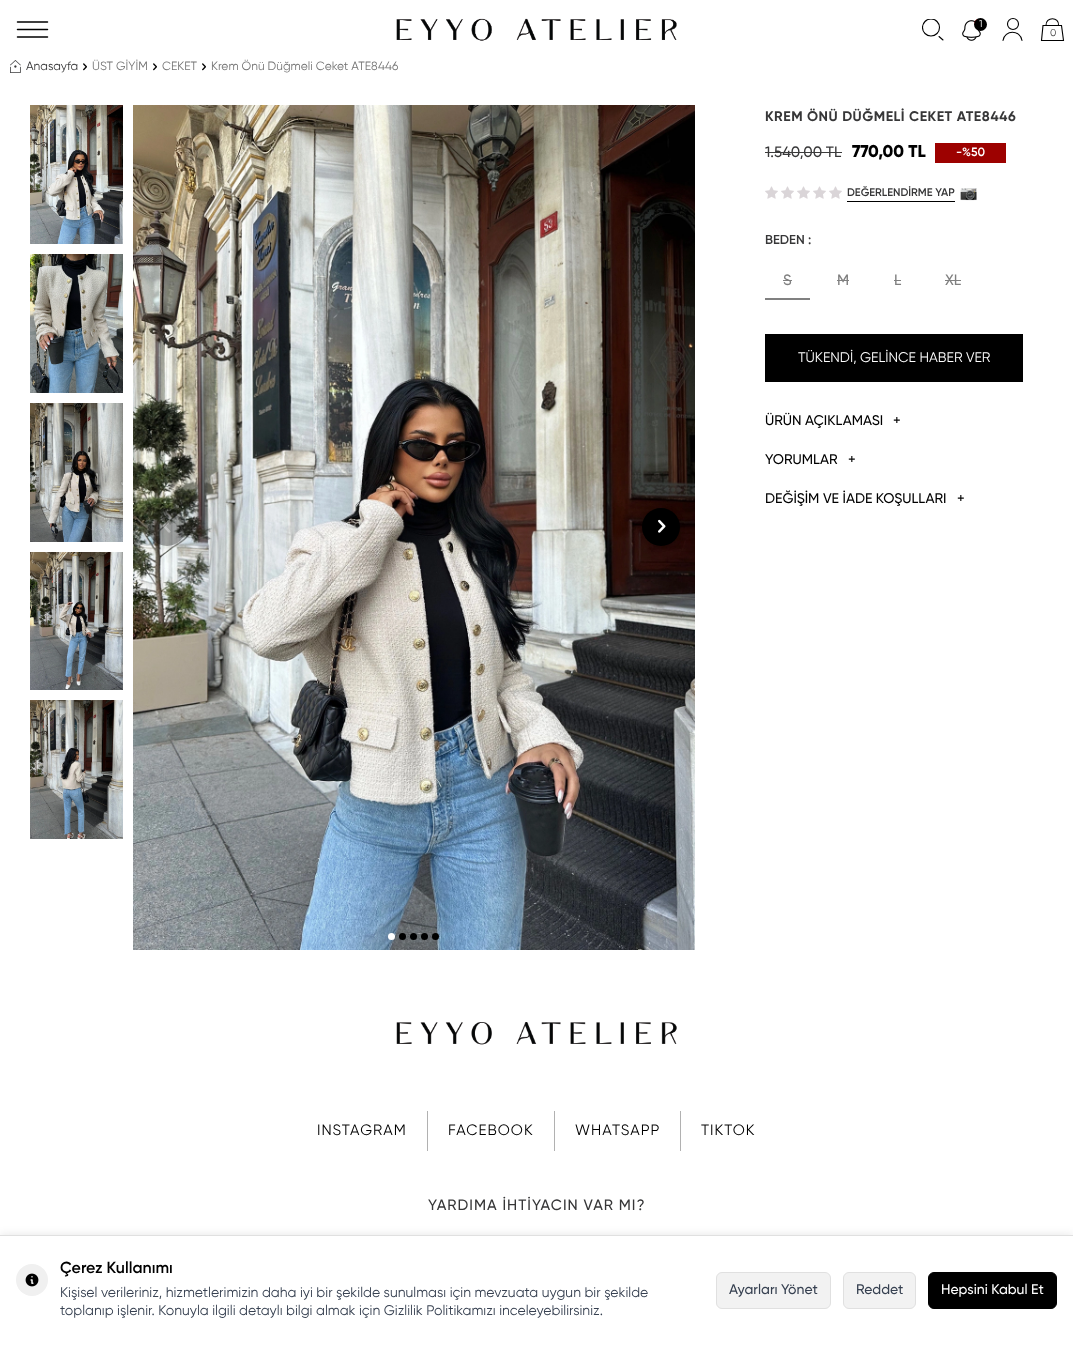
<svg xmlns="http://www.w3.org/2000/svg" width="1073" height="1345">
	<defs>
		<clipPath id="clip1"><rect x="922" y="19" width="22" height="22" /></clipPath>
		<clipPath id="clip2"><path d="M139 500H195V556H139ZM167 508C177.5 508 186 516.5 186 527C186 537.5 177.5 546 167 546C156.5 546 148 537.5 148 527C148 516.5 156.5 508 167 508Z" clip-rule="evenodd" /></clipPath>
	</defs>
	<rect width="100%" height="100%" fill="#FFFFFF" />
	<path d="M17.5 22H47.5M17.5 29.5H47.5M17.5 37H47.5" fill="none" stroke="#000000" stroke-width="1.5" stroke-linecap="round" stroke-linejoin="round" />
	<image x="396" y="18" width="281" height="23" href="assets/img1.png" />
	<g clip-path="url(#clip1)">
		<circle cx="931" cy="27.5" r="8.5" fill="none" stroke="#000000" stroke-width="1.1" />
	</g>
	<path d="M939 36.5L943 40" fill="none" stroke="#000000" stroke-width="1.1" stroke-linecap="round" />
	<image x="962" y="19" width="19" height="22" href="assets/img2.png" />
	<circle cx="980.5" cy="24.5" r="6.5" fill="#000000" />
	<text x="979" y="27" font-family="Gilroy" font-size="10" fill="#FFFFFF">1</text>
	<circle cx="1013" cy="24" r="5.5" fill="none" stroke="#000000" stroke-width="1.1" />
	<path d="M1022 40.5C1020.5 29.5 1004.5 29.5 1003 40.5" fill="none" stroke="#000000" stroke-width="1.1" stroke-linecap="round" />
	<path d="M1043 25.5L1041.5 40.5H1063.5L1061.5 25.5ZM1058.5 25.5C1059.5 16.5 1045.5 16.5 1046 25.5" fill="none" stroke="#000000" stroke-width="1.1" stroke-linecap="round" />
	<text x="1050" y="36" font-family="Gilroy" font-size="10" fill="#373738">0</text>
	<image x="10" y="60" width="11" height="13" href="assets/img3.png" />
	<text x="26" y="70" font-family="Gilroy" font-size="12" fill="#373738">Anasayfa</text>
	<image x="83" y="63" width="4" height="8" href="assets/img4.png" />
	<text x="92" y="70" font-family="Gilroy" font-size="12" fill="#747474">ÜST GİYİM</text>
	<image x="153" y="63" width="4" height="8" href="assets/img4.png" />
	<text x="162" y="70" font-family="Gilroy" font-size="12" fill="#747474">CEKET</text>
	<image x="202" y="63" width="4" height="8" href="assets/img4.png" />
	<text x="211" y="70" font-family="Gilroy" font-size="12" fill="#747474">Krem Önü Düğmeli Ceket ATE8446</text>
	<image x="30" y="105" width="93" height="139" href="assets/img5.png" />
	<image x="30" y="254" width="93" height="139" href="assets/img6.png" />
	<image x="30" y="403" width="93" height="139" href="assets/img7.png" />
	<image x="30" y="552" width="93" height="138" href="assets/img8.png" />
	<image x="30" y="700" width="93" height="139" href="assets/img9.png" />
	<image x="133" y="105" width="562" height="845" href="assets/img10.png" />
	<g clip-path="url(#clip2)">
		<rect x="148" y="509" width="38" height="38" rx="19" fill="#000000" fill-opacity="0.08" filter="blur(2.5px)" />
	</g>
	<circle cx="167" cy="527" r="19" fill="#000000" fill-opacity="0.35" />
	<image x="163" y="520" width="8" height="13" href="assets/img11.png" />
	<rect x="642" y="509" width="38" height="38" rx="19" fill="#000000" fill-opacity="0.24" filter="blur(2.5px)" />
	<circle cx="661" cy="527" r="19" fill="#000000" />
	<image x="658" y="519" width="8" height="14" href="assets/img12.png" />
	<circle cx="391.5" cy="936.5" r="3.5" fill="#FFFFFF" />
	<circle cx="402.5" cy="936.5" r="3.5" fill="#000000" />
	<circle cx="413.5" cy="936.5" r="3.5" fill="#000000" />
	<circle cx="424.5" cy="936.5" r="3.5" fill="#000000" />
	<circle cx="435.5" cy="936.5" r="3.5" fill="#000000" />
	<text x="765" y="121" font-family="Gilroy" font-size="14" font-weight="700" letter-spacing="0.5" fill="#373738">KREM ÖNÜ DÜĞMELİ CEKET ATE8446</text>
	<text x="765" y="157" font-family="Gilroy" font-size="15" font-weight="500" fill="#373738">1.540,00 TL</text>
	<rect x="765" y="152" width="77" height="1" fill="#3C3C3C" />
	<text x="852" y="157" font-family="Gilroy" font-size="17" font-weight="800" fill="#000000">770,00 TL</text>
	<rect x="935" y="143" width="71" height="20" fill="#9D0100" />
	<text x="956" y="156" font-family="Gilroy" font-size="12" font-weight="600" fill="#FFFFFF">-%50</text>
	<image x="765" y="186" width="13" height="13" href="assets/img13.png" />
	<image x="781" y="186" width="13" height="13" href="assets/img13.png" />
	<image x="797" y="186" width="13" height="13" href="assets/img13.png" />
	<image x="813" y="186" width="13" height="13" href="assets/img13.png" />
	<image x="829" y="186" width="13" height="13" href="assets/img13.png" />
	<rect x="847" y="201" width="108" height="1" fill="#000000" />
	<text x="847" y="196" font-family="Gilroy" font-size="11" font-weight="600" fill="#373738">DEĞERLENDİRME YAP</text>
	<image x="960" y="188" width="17" height="13" href="assets/img14.png" />
	<text x="765" y="244" font-family="Gilroy" font-size="13" font-weight="600" fill="#373738">BEDEN :</text>
	<rect x="765" y="298" width="45" height="2" fill="#808080" />
	<text x="783" y="285" font-family="Gilroy" font-size="15" font-weight="500" fill="#808080">S</text>
	<rect x="783" y="280" width="9" height="1" fill="#808080" />
	<text x="837" y="285" font-family="Gilroy" font-size="15" font-weight="500" fill="#808080">M</text>
	<rect x="837" y="280" width="12" height="1" fill="#808080" />
	<text x="894" y="285" font-family="Gilroy" font-size="15" font-weight="500" fill="#808080">L</text>
	<rect x="894" y="280" width="7" height="1" fill="#808080" />
	<text x="945" y="285" font-family="Gilroy" font-size="15" font-weight="500" fill="#808080">XL</text>
	<rect x="945" y="280" width="16" height="1" fill="#808080" />
	<rect x="765" y="334" width="258" height="48" fill="#000000" />
	<text x="798" y="362" font-family="Gilroy" font-size="14" fill="#FFFFFF">TÜKENDİ, GELİNCE HABER VER</text>
	<g font-family="Gilroy" font-size="14" font-weight="500" fill="#000000">
		<text x="765" y="425">ÜRÜN AÇIKLAMASI</text>
		<text x="893" y="425">+</text>
		<text x="765" y="464">YORUMLAR</text>
		<text x="848" y="464">+</text>
		<text x="765" y="503">DEĞİŞİM VE İADE KOŞULLARI</text>
		<text x="957" y="503">+</text>
	</g>
	<image x="396" y="1022" width="281" height="23" href="assets/img15.png" />
	<rect x="427" y="1111" width="1" height="40" fill="#B1B1B1" />
	<text x="317" y="1135" font-family="Gilroy" font-size="15" letter-spacing="1" fill="#000000">INSTAGRAM</text>
	<rect x="554" y="1111" width="1" height="40" fill="#B1B1B1" />
	<text x="448" y="1135" font-family="Gilroy" font-size="15" letter-spacing="1" fill="#000000">FACEBOOK</text>
	<rect x="680" y="1111" width="1" height="40" fill="#B1B1B1" />
	<g font-family="Gilroy" font-size="15" letter-spacing="1" fill="#000000">
		<text x="575" y="1135">WHATSAPP</text>
		<text x="701" y="1135">TIKTOK</text>
	</g>
	<text x="428" y="1210" font-family="Gilroy" font-size="15" font-weight="500" letter-spacing="1" fill="#373738">YARDIMA İHTİYACIN VAR MI?</text>
	<rect x="0" y="1235" width="1073" height="110" fill="#000000" fill-opacity="0.1" filter="blur(5px)" />
	<rect x="0" y="1236" width="1073" height="109" fill="#FFFFFF" />
	<rect x="0" y="1235" width="1073" height="1" fill="#E0E0E0" />
	<circle cx="32" cy="1280" r="16" fill="#F0F0F0" />
	<image x="25" y="1273" width="14" height="14" href="assets/img16.png" />
	<text x="60" y="1273" font-family="Gilroy" font-size="16" font-weight="600" fill="#000000">Çerez Kullanımı</text>
	<g font-family="Gilroy" font-size="14" fill="#374151">
		<text x="60" y="1297">Kişisel verileriniz, hizmetlerimizin daha iyi bir şekilde sunulması için mevzuata uygun bir şekilde</text>
		<text x="60" y="1315">toplanıp işlenir. Konuyla ilgili detaylı bilgi almak için Gizlilik Politikamızı inceleyebilirsiniz.</text>
	</g>
	<rect x="716.5" y="1272.5" width="114" height="36" rx="5.5" fill="#F2F2F2" stroke="#E0E0E0" />
	<text x="729" y="1294" font-family="Gilroy" font-size="14" font-weight="500" fill="#374151">Ayarları Yönet</text>
	<rect x="843.5" y="1272.5" width="72" height="36" rx="5.5" fill="#F2F2F2" stroke="#E0E0E0" />
	<text x="856" y="1294" font-family="Gilroy" font-size="14" font-weight="500" fill="#374151">Reddet</text>
	<rect x="928.5" y="1272.5" width="128" height="36" rx="5.5" fill="#000000" stroke="#000000" />
	<text x="941" y="1294" font-family="Gilroy" font-size="14" font-weight="500" fill="#FFFFFF">Hepsini Kabul Et</text>
</svg>
